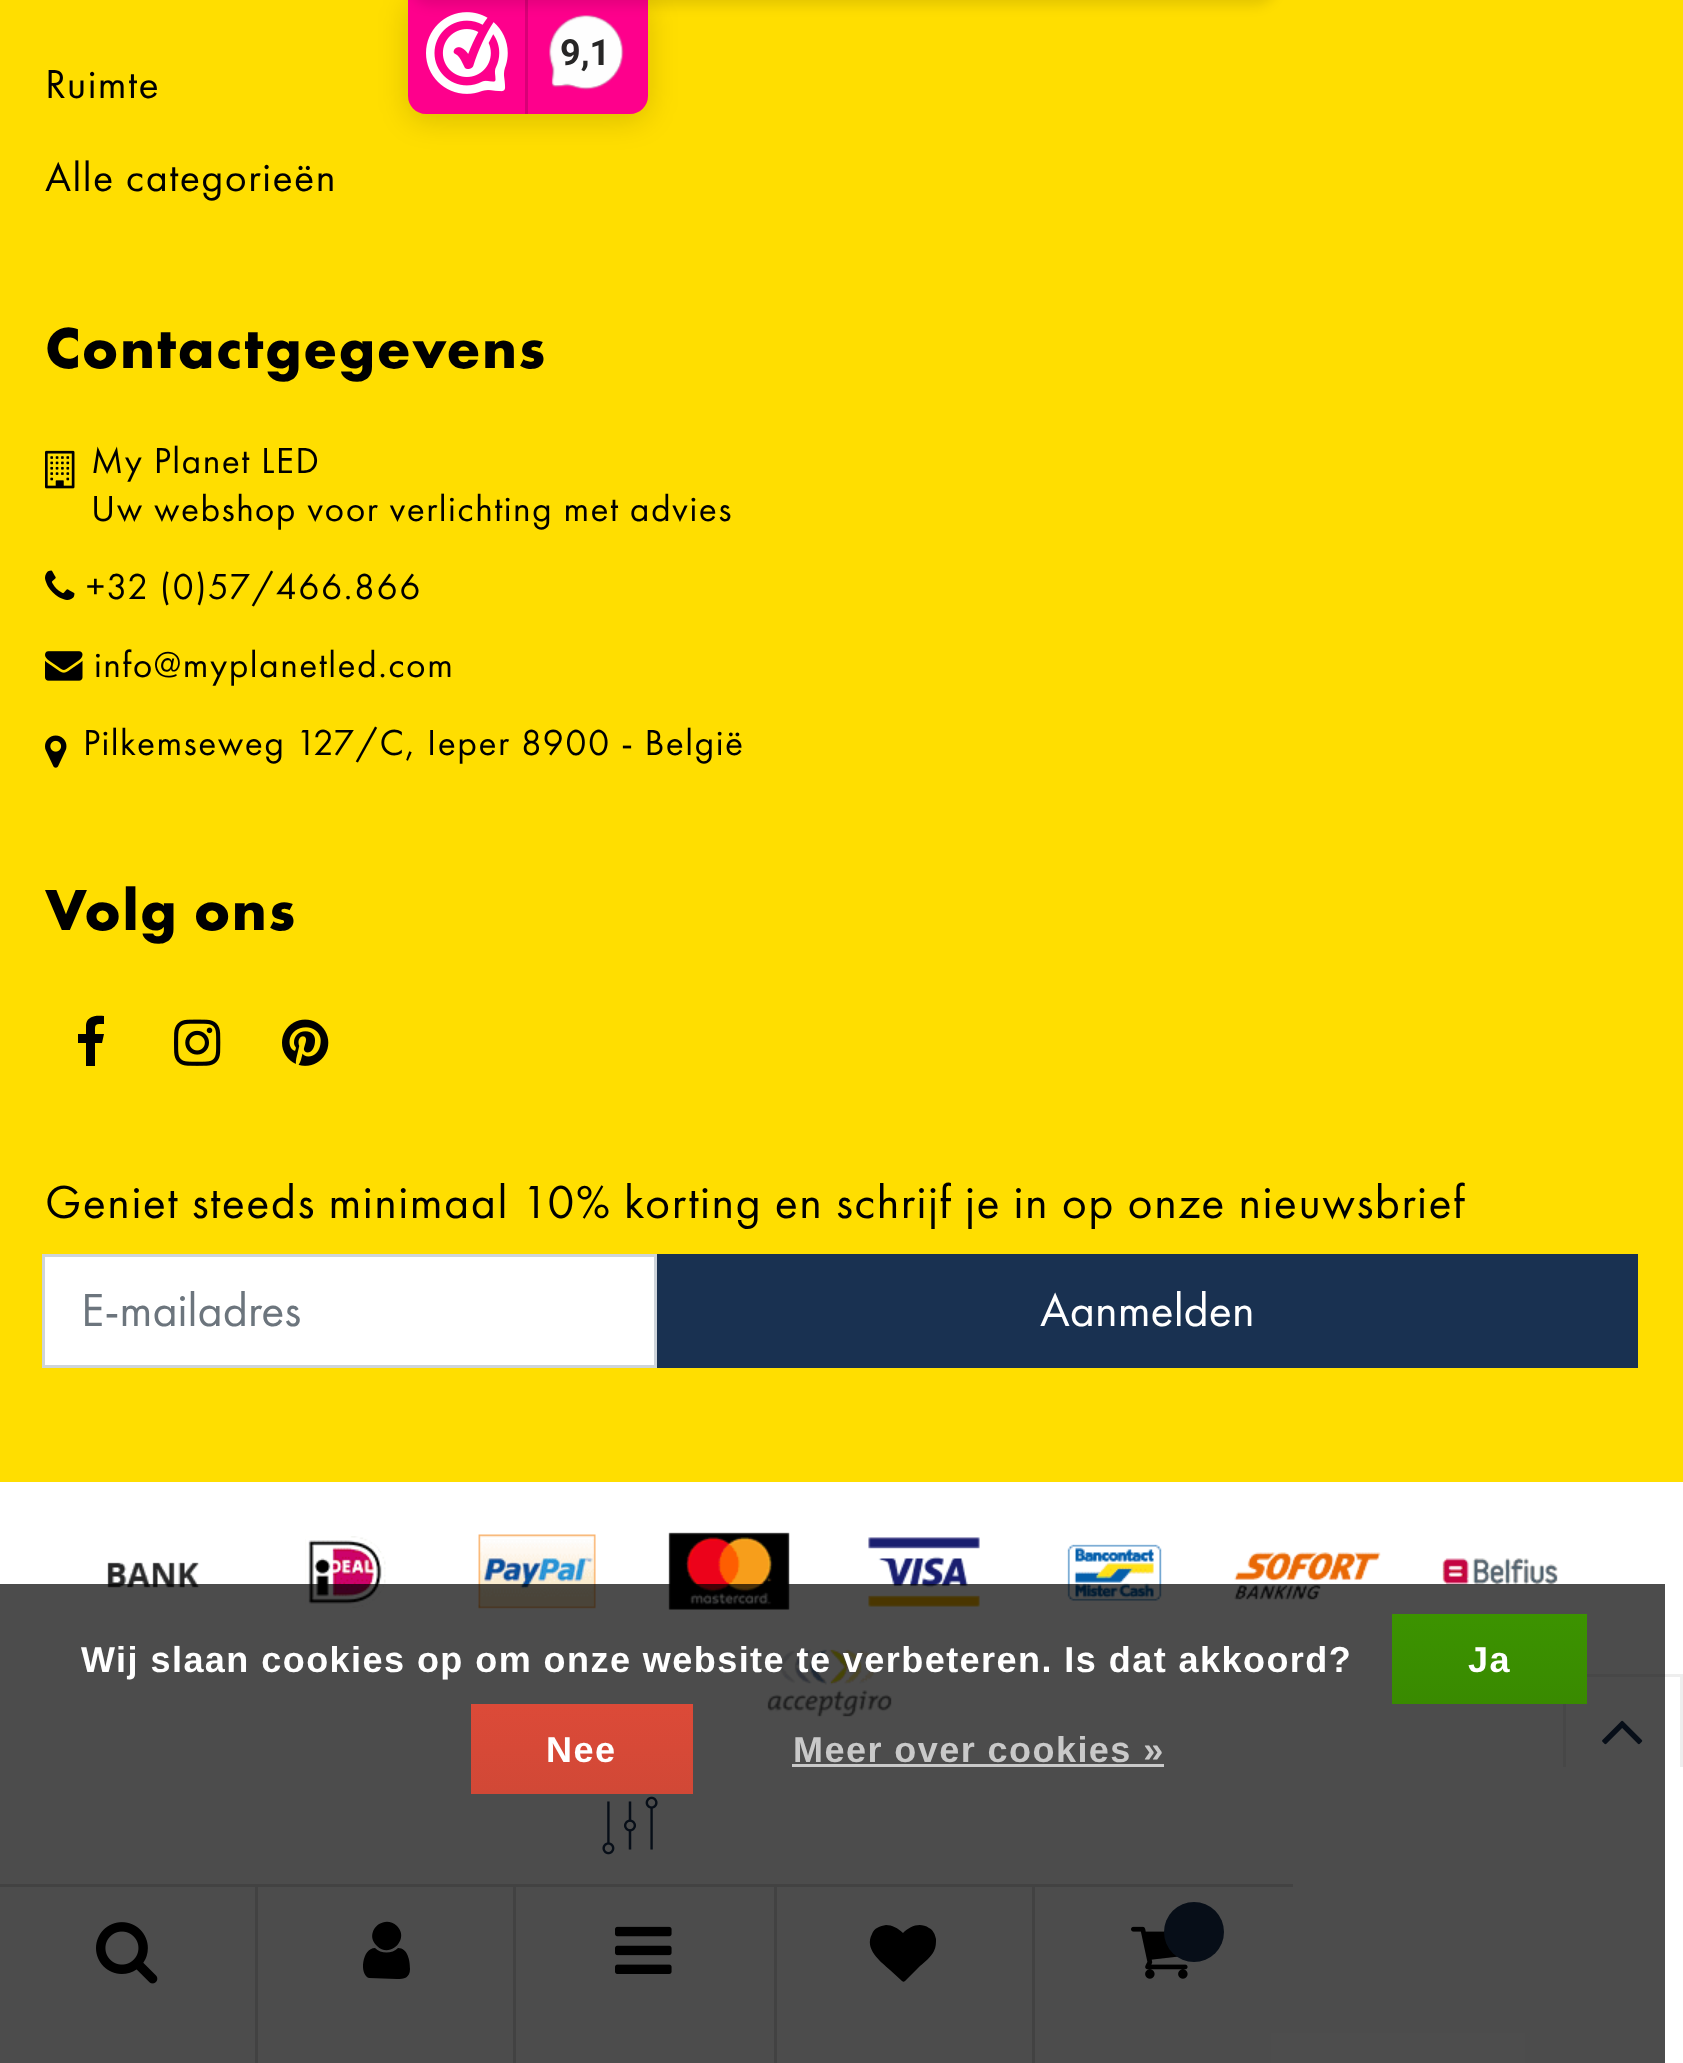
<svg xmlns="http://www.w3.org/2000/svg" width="1683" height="2063">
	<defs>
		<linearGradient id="g1" gradientUnits="userSpaceOnUse" x1="1490" y1="1614" x2="1490" y2="1704"><stop offset="0" stop-color="#3C9300" /><stop offset="1" stop-color="#398A00" /></linearGradient>
		<linearGradient id="g2" gradientUnits="userSpaceOnUse" x1="582" y1="1704" x2="582" y2="1794"><stop offset="0" stop-color="#DC4A38" /><stop offset="1" stop-color="#D14836" /></linearGradient>
	</defs>
	<rect width="100%" height="100%" fill="#FFFFFF" />
	<rect x="0" y="0" width="1683" height="1482" fill="#FFDE00" />
	<rect x="408" y="0" width="240" height="120" rx="18" fill="#000000" fill-opacity="0.15" filter="blur(15px)" />
	<path d="M408-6H648V96C648 106 640 114 630 114H426C416 114 408 106 408 96Z" fill="#FE008C" />
	<image x="426" y="12" width="82" height="82" href="assets/img1.png" />
	<rect x="525" y="0" width="3" height="114" fill="#D80077" />
	<image x="549" y="15" width="76" height="76" href="assets/img2.png" />
	<rect x="408" y="-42" width="870" height="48" rx="24" fill="#000000" fill-opacity="0.1" filter="blur(6px)" />
	<text x="560" y="65" font-family="Roboto" font-size="36" font-weight="700" fill="#272626">9,1</text>
	<g font-family="Futura PT" font-size="42" letter-spacing="1.45" fill="#000000">
		<text x="45" y="98">Ruimte</text>
		<text x="45" y="191">Alle categorieën</text>
	</g>
	<text x="45" y="368" font-family="Futura PT" font-size="60" font-weight="700" letter-spacing="1.45" fill="#000000">Contactgegevens</text>
	<image x="45" y="450" width="30" height="39" href="assets/img3.png" />
	<g font-family="Futura PT" font-size="37.5" letter-spacing="1.45" fill="#000000">
		<text x="91" y="473">My Planet LED</text>
		<text x="91" y="521">Uw webshop voor verlichting met advies</text>
	</g>
	<image x="45" y="570" width="30" height="30" href="assets/img4.png" />
	<text x="86" y="599" font-family="Futura PT" font-size="37.5" letter-spacing="1.45" fill="#000000">+32 (0)57/466.866</text>
	<image x="45" y="651" width="38" height="30" href="assets/img5.png" />
	<text x="94" y="677" font-family="Futura PT" font-size="37.5" letter-spacing="1.45" fill="#000000">info@myplanetled.com</text>
	<image x="45" y="735" width="22" height="33" href="assets/img6.png" />
	<text x="83" y="755" font-family="Futura PT" font-size="37.5" letter-spacing="1.45" fill="#000000">Pilkemseweg 127/C, Ieper 8900 - België</text>
	<text x="45" y="930" font-family="Futura PT" font-size="60" font-weight="700" letter-spacing="1.45" fill="#000000">Volg ons</text>
	<path d="M104 1016V1024C94 1024 95 1024 95 1034H104L102 1043H95V1066H86V1043H78V1034H86V1025C87 1016 96 1015 104 1016Z" fill="#000000" />
	<image x="174" y="1019" width="47" height="47" href="assets/img7.png" />
	<image x="282" y="1019" width="47" height="47" href="assets/img8.png" />
	<text x="45" y="1218" font-family="Futura PT" font-size="48" letter-spacing="1.45" fill="#000000">Geniet steeds minimaal 10% korting en schrijf je in op onze nieuwsbrief</text>
	<rect x="43.5" y="1255.5" width="612" height="111" fill="#FFFFFF" stroke="#CED4DA" stroke-width="3" />
	<text x="81" y="1326" font-family="Futura PT" font-size="48" fill="#6C757D">E-mailadres</text>
	<rect x="657" y="1254" width="981" height="114" fill="#193151" />
	<text x="1040" y="1326" font-family="Futura PT" font-size="48" fill="#FFFFFF">Aanmelden</text>
	<image x="107" y="1562" width="93" height="26" href="assets/img9.png" />
	<image x="305" y="1536" width="81" height="72" href="assets/img10.png" />
	<image x="478" y="1534" width="118" height="75" href="assets/img11.png" />
	<image x="668" y="1532" width="122" height="78" href="assets/img12.png" />
	<image x="868" y="1537" width="112" height="70" href="assets/img13.png" />
	<image x="1067" y="1544" width="95" height="57" href="assets/img14.png" />
	<image x="1234" y="1552" width="147" height="48" href="assets/img15.png" />
	<image x="1442" y="1558" width="116" height="27" href="assets/img16.png" />
	<image x="767" y="1649" width="125" height="68" href="assets/img17.png" />
	<rect x="1564.5" y="1675.5" width="117" height="117" fill="none" stroke="#EEEEEE" stroke-width="3" />
	<image x="1602" y="1720" width="41" height="25" href="assets/img18.png" />
	<rect x="1563" y="1767" width="120" height="27" fill="#FFFFFF" />
	<image x="602" y="1796" width="56" height="59" href="assets/img19.png" />
	<rect x="0" y="1884" width="1293" height="3" fill="#DDDDDD" />
	<rect x="255" y="1884" width="3" height="179" fill="#DDDDDD" />
	<image x="96" y="1922" width="62" height="62" href="assets/img20.png" />
	<rect x="513" y="1884" width="3" height="179" fill="#DDDDDD" />
	<path d="M410 1969C410 1978 404 1979 397 1979L369 1978C359 1975 362 1948 375 1948C381 1954 392 1954 398 1948C408 1948 410 1961 410 1969ZM397 1926C410 1939 390 1959 377 1946C363 1933 383 1913 397 1926Z" fill="#000000" />
	<rect x="774" y="1884" width="3" height="179" fill="#DDDDDD" />
	<image x="615" y="1926" width="57" height="48" href="assets/img21.png" />
	<rect x="1032" y="1884" width="3" height="179" fill="#DDDDDD" />
	<path d="M905 1981C904 1982 903 1982 902 1981L890 1970C880 1961 864 1949 872 1934C874 1928 880 1926 886 1925C892 1925 898 1928 903 1933C910 1926 920 1922 929 1928C933 1930 935 1934 936 1939C936 1943 936 1947 934 1951C931 1957 925 1962 920 1966Z" fill="#000000" />
	<image x="1131" y="1926" width="57" height="53" href="assets/img22.png" />
	<circle cx="1194" cy="1932" r="30" fill="#193151" />
	<rect x="0" y="1584" width="1665" height="479" fill="#000000" fill-opacity="0.7" />
	<text x="81" y="1672" font-family="Liberation Sans" font-size="36" font-weight="700" letter-spacing="1.45" fill="#FFFFFF">Wij slaan cookies op om onze website te verbeteren. Is dat akkoord?</text>
	<rect x="1392" y="1614" width="195" height="90" fill="url(#g1)" />
	<text x="1468" y="1672" font-family="Liberation Sans" font-size="36" font-weight="700" letter-spacing="1.45" fill="#FFFFFF">Ja</text>
	<rect x="471" y="1704" width="222" height="90" fill="url(#g2)" />
	<text x="546" y="1762" font-family="Liberation Sans" font-size="36" font-weight="700" letter-spacing="1.45" fill="#FFFFFF">Nee</text>
	<text x="793" y="1762" font-family="Liberation Sans" font-size="36" font-weight="700" letter-spacing="1.45" fill="#C9C9C9">Meer over cookies »</text>
	<rect x="792" y="1764" width="372" height="3" fill="#C9C9C9" />
</svg>
